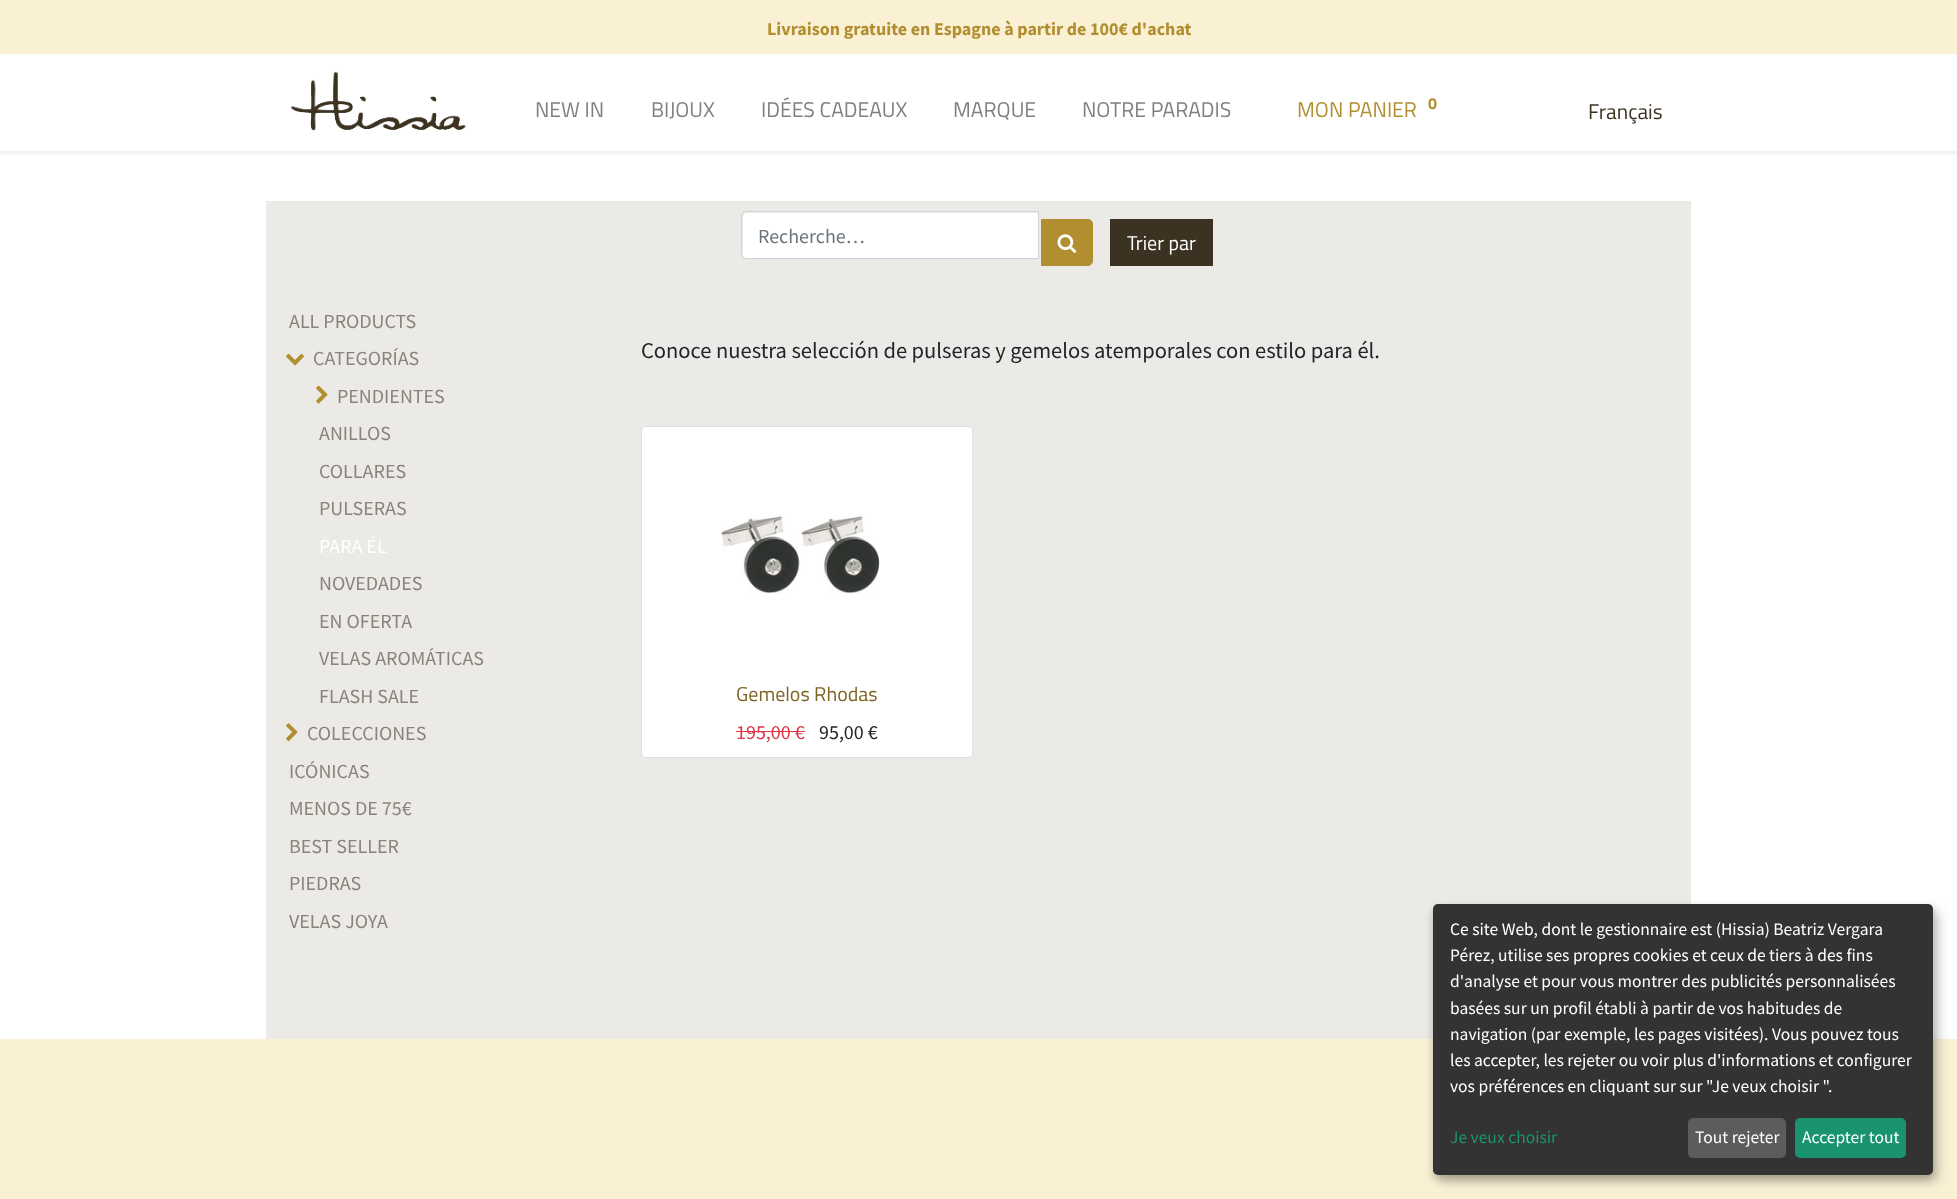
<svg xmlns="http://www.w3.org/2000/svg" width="1957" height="1199">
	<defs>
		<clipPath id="clip1"><rect x="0" y="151" width="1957" height="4" /></clipPath>
	</defs>
	<rect width="100%" height="100%" fill="#FFFFFF" />
	<rect x="0" y="0" width="1957" height="54" fill="#FAF1D5" />
	<text x="767" y="35" font-family="Source Sans Pro" font-size="18" font-weight="700" fill="#B18E30">Livraison gratuite en Espagne à partir de 100€ d'achat</text>
	<g clip-path="url(#clip1)">
		<rect x="0" y="56" width="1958" height="98" fill="#000000" fill-opacity="0.07" filter="blur(2.5px)" />
	</g>
	<image x="291" y="71" width="175" height="60" href="assets/img1.png" />
	<g font-family="Titillium Web" font-size="21.25" fill="#808080">
		<text x="535" y="117">NEW IN</text>
		<text x="651" y="117">BIJOUX</text>
		<text x="761" y="117">IDÉES CADEAUX</text>
		<text x="953" y="117">MARQUE</text>
		<text x="1082" y="117">NOTRE PARADIS</text>
	</g>
	<text x="1297" y="117" font-family="Titillium Web" font-size="21.25" fill="#B18E30">MON PANIER</text>
	<text x="1428" y="109" font-family="Titillium Web" font-size="16" font-weight="700" fill="#B18E30">0</text>
	<text x="1588" y="119" font-family="Titillium Web" font-size="21.25" fill="#3B3221">Français</text>
	<rect x="266" y="201" width="1425" height="838" fill="#EBEAE7" />
	<path d="M747 213H1038V258H747C745 258 743 256 743 254V217C743 215 745 213 747 213Z" fill="#FFFFFF" />
	<path d="M746 211.5H1038.5V258.5H746C743.5 258.5 741.5 256.5 741.5 254V216C741.5 213.5 743.5 211.5 746 211.5Z" fill="none" stroke="#CED4DA" />
	<text x="758" y="243" font-family="Source Sans Pro" font-size="20" fill="#6C757D">Recherche…</text>
	<path d="M1041.5 219.5H1088C1090.5 219.5 1092.5 221.5 1092.5 224V261C1092.5 263.5 1090.5 265.5 1088 265.5H1041.5Z" fill="#B18E30" stroke="#B18E30" />
	<image x="1057" y="234" width="20" height="19" href="assets/img2.png" />
	<rect x="1110" y="219" width="103" height="47" fill="#3B3221" />
	<text x="1127" y="250" font-family="Titillium Web" font-size="20" fill="#FFFFFF">Trier par</text>
	<text x="289" y="328" font-family="Source Sans Pro" font-size="20" fill="#89847A">ALL PRODUCTS</text>
	<image x="286" y="353" width="18" height="13" href="assets/img3.png" />
	<text x="313" y="365" font-family="Source Sans Pro" font-size="20" fill="#89847A">CATEGORÍAS</text>
	<image x="316" y="385" width="12" height="19" href="assets/img4.png" />
	<g font-family="Source Sans Pro" font-size="20" fill="#89847A">
		<text x="337" y="403">PENDIENTES</text>
		<text x="319" y="440">ANILLOS</text>
		<text x="319" y="478">COLLARES</text>
		<text x="319" y="515">PULSERAS</text>
	</g>
	<text x="319" y="553" font-family="Source Sans Pro" font-size="20" fill="#FFFFFF">PARA ÉL</text>
	<g font-family="Source Sans Pro" font-size="20" fill="#89847A">
		<text x="319" y="590">NOVEDADES</text>
		<text x="319" y="628">EN OFERTA</text>
		<text x="319" y="665">VELAS AROMÁTICAS</text>
		<text x="319" y="703">FLASH SALE</text>
	</g>
	<image x="286" y="723" width="12" height="19" href="assets/img5.png" />
	<g font-family="Source Sans Pro" font-size="20" fill="#89847A">
		<text x="307" y="740">COLECCIONES</text>
		<text x="289" y="778">ICÓNICAS</text>
		<text x="289" y="815">MENOS DE 75€</text>
		<text x="289" y="853">BEST SELLER</text>
		<text x="289" y="890">PIEDRAS</text>
		<text x="289" y="928">VELAS JOYA</text>
	</g>
	<text x="641" y="358" font-family="Source Sans Pro" font-size="22.5" fill="#212529">Conoce nuestra selección de pulseras y gemelos atemporales con estilo para él.</text>
	<rect x="641" y="426" width="332" height="332" rx="5" fill="#FFFFFF" />
	<rect x="641.5" y="426.5" width="331" height="331" rx="4.5" fill="none" stroke="#000000" stroke-opacity="0.12" />
	<image x="721" y="515" width="159" height="79" href="assets/img6.png" />
	<text x="736" y="701" font-family="Titillium Web" font-size="20" fill="#7D6422">Gemelos Rhodas</text>
	<text x="736" y="739" font-family="Source Sans Pro" font-size="20" fill="#DC3545">195,00 €</text>
	<rect x="736" y="731" width="69" height="1" fill="#DC3545" />
	<text x="819" y="739" font-family="Source Sans Pro" font-size="20" fill="#212529">95,00 €</text>
	<rect x="0" y="1039" width="1957" height="160" fill="#FAF1D5" />
	<rect x="1439" y="910" width="500" height="271" rx="5" fill="#000000" fill-opacity="0.19" filter="blur(6px)" />
	<rect x="1433" y="909" width="500" height="271" rx="5" fill="#000000" fill-opacity="0.2" filter="blur(4px)" />
	<rect x="1433" y="904" width="500" height="271" rx="5" fill="#333333" />
	<g font-family="Source Sans Pro" font-size="17.5" fill="#FFFFFF">
		<text x="1450" y="935">Ce site Web, dont le gestionnaire est (Hissia) Beatriz Vergara</text>
		<text x="1450" y="961">Pérez, utilise ses propres cookies et ceux de tiers à des fins</text>
		<text x="1450" y="987">d'analyse et pour vous montrer des publicités personnalisées</text>
		<text x="1450" y="1014">basées sur un profil établi à partir de vos habitudes de</text>
		<text x="1450" y="1040">navigation (par exemple, les pages visitées). Vous pouvez tous</text>
		<text x="1450" y="1066">les accepter, les rejeter ou voir plus d'informations et configurer</text>
		<text x="1450" y="1092">vos préférences en cliquant sur sur "Je veux choisir ".</text>
	</g>
	<text x="1450" y="1143" font-family="Source Sans Pro" font-size="17.5" fill="#1A936F">Je veux choisir</text>
	<rect x="1688" y="1118" width="98" height="40" rx="5" fill="#5C5C5C" />
	<text x="1695" y="1143" font-family="Source Sans Pro" font-size="17.5" fill="#FFFFFF">Tout rejeter</text>
	<rect x="1795" y="1118" width="111" height="40" rx="5" fill="#1A936F" />
	<text x="1802" y="1143" font-family="Source Sans Pro" font-size="17.5" fill="#FFFFFF">Accepter tout</text>
</svg>
